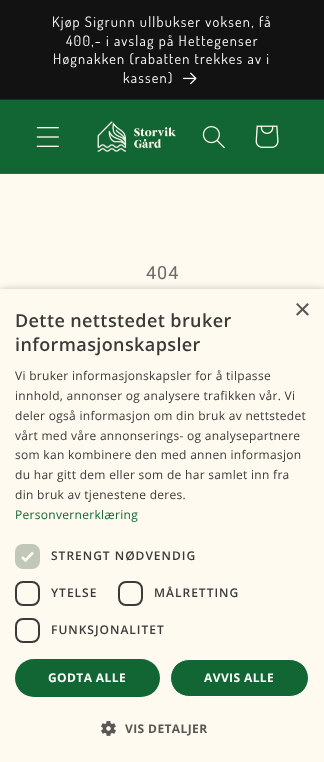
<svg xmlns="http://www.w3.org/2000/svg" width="324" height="762">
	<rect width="100%" height="100%" fill="#FFFAEF" />
	<rect x="0" y="0" width="324" height="99" fill="#121212" />
	<rect x="0" y="99" width="324" height="1" fill="#252525" />
	<g font-family="Dosis" font-size="14.4" letter-spacing="1.2" fill="#FFFFFF">
		<text x="52" y="27">Kjøp Sigrunn ullbukser voksen, få</text>
		<text x="66" y="46">400,- i avslag på Hettegenser</text>
		<text x="53" y="64">Høgnakken (rabatten trekkes av i</text>
		<text x="123" y="83">kassen)</text>
	</g>
	<image x="183" y="72" width="14" height="13" href="assets/img1.png" />
	<rect x="0" y="100" width="324" height="73" fill="#126634" />
	<rect x="0" y="173" width="324" height="1" fill="#257243" />
	<image x="36" y="127" width="23" height="20" href="assets/img2.png" />
	<image x="97" y="121" width="79" height="31" href="assets/img3.png" />
	<image x="202" y="126" width="23" height="23" href="assets/img4.png" />
	<image x="255" y="125" width="24" height="23" href="assets/img5.png" />
	<text x="146" y="279" font-family="Roboto" font-size="18" letter-spacing="1" fill="#6B6A67">404</text>
	<rect x="1" y="291" width="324" height="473" fill="#000000" fill-opacity="0.35" filter="blur(4px)" />
	<rect x="0" y="289" width="324" height="473" fill="#FFFAEF" />
	<text x="294" y="319" font-family="Liberation Sans" font-size="29" fill="#585755">×</text>
	<g font-family="Open Sans" font-size="18" font-weight="600" letter-spacing="0.4" fill="#3A3A3A">
		<text x="15" y="327">Dette nettstedet bruker</text>
		<text x="15" y="351">informasjonskapsler</text>
	</g>
	<g font-family="Open Sans" font-size="12" letter-spacing="0.3" fill="#3A3A3A">
		<text x="15" y="380">Vi bruker informasjonskapsler for å tilpasse</text>
		<text x="15" y="400">innhold, annonser og analysere trafikken vår. Vi</text>
		<text x="15" y="420">deler også informasjon om din bruk av nettstedet</text>
		<text x="15" y="440">vårt med våre annonserings- og analysepartnere</text>
		<text x="15" y="459">som kan kombinere den med annen informasjon</text>
		<text x="15" y="479">du har gitt dem eller som de har samlet inn fra</text>
		<text x="15" y="499">din bruk av tjenestene deres.</text>
	</g>
	<text x="15" y="519" font-family="Open Sans" font-size="12" letter-spacing="0.3" fill="#126634">Personvernerklæring</text>
	<rect x="15" y="544" width="25" height="25" rx="8" fill="#C1C7B9" />
	<path d="M22 557L25.5 560.5L33 552.5" fill="none" stroke="#FFFAEF" stroke-width="2.6" />
	<text x="51" y="560" font-family="Open Sans" font-size="12" font-weight="600" letter-spacing="1" fill="#3A3A3A">STRENGT NØDVENDIG</text>
	<rect x="16" y="582" width="23" height="23" rx="7" fill="none" stroke="#3A3A3A" stroke-width="2" />
	<text x="51" y="597" font-family="Open Sans" font-size="12" font-weight="600" letter-spacing="1" fill="#3A3A3A">YTELSE</text>
	<rect x="119" y="582" width="23" height="23" rx="7" fill="none" stroke="#3A3A3A" stroke-width="2" />
	<text x="154" y="597" font-family="Open Sans" font-size="12" font-weight="600" letter-spacing="1" fill="#3A3A3A">MÅLRETTING</text>
	<rect x="16" y="619" width="23" height="23" rx="7" fill="none" stroke="#3A3A3A" stroke-width="2" />
	<text x="51" y="634" font-family="Open Sans" font-size="12" font-weight="600" letter-spacing="1" fill="#3A3A3A">FUNKSJONALITET</text>
	<rect x="15" y="659" width="145" height="38" rx="19" fill="#126634" />
	<text x="48" y="682" font-family="Open Sans" font-size="12" font-weight="700" letter-spacing="0.4" fill="#FFFFFF">GODTA ALLE</text>
	<rect x="170.5" y="659.5" width="138" height="37" rx="18.5" fill="#126634" stroke="#FFFFFF" />
	<text x="204" y="682" font-family="Open Sans" font-size="12" font-weight="700" letter-spacing="0.4" fill="#FFFFFF">AVVIS ALLE</text>
	<image x="101" y="721" width="15" height="15" href="assets/img6.png" />
	<text x="125" y="733" font-family="Open Sans" font-size="12" font-weight="700" letter-spacing="0.4" fill="#585755">VIS DETALJER</text>
</svg>
